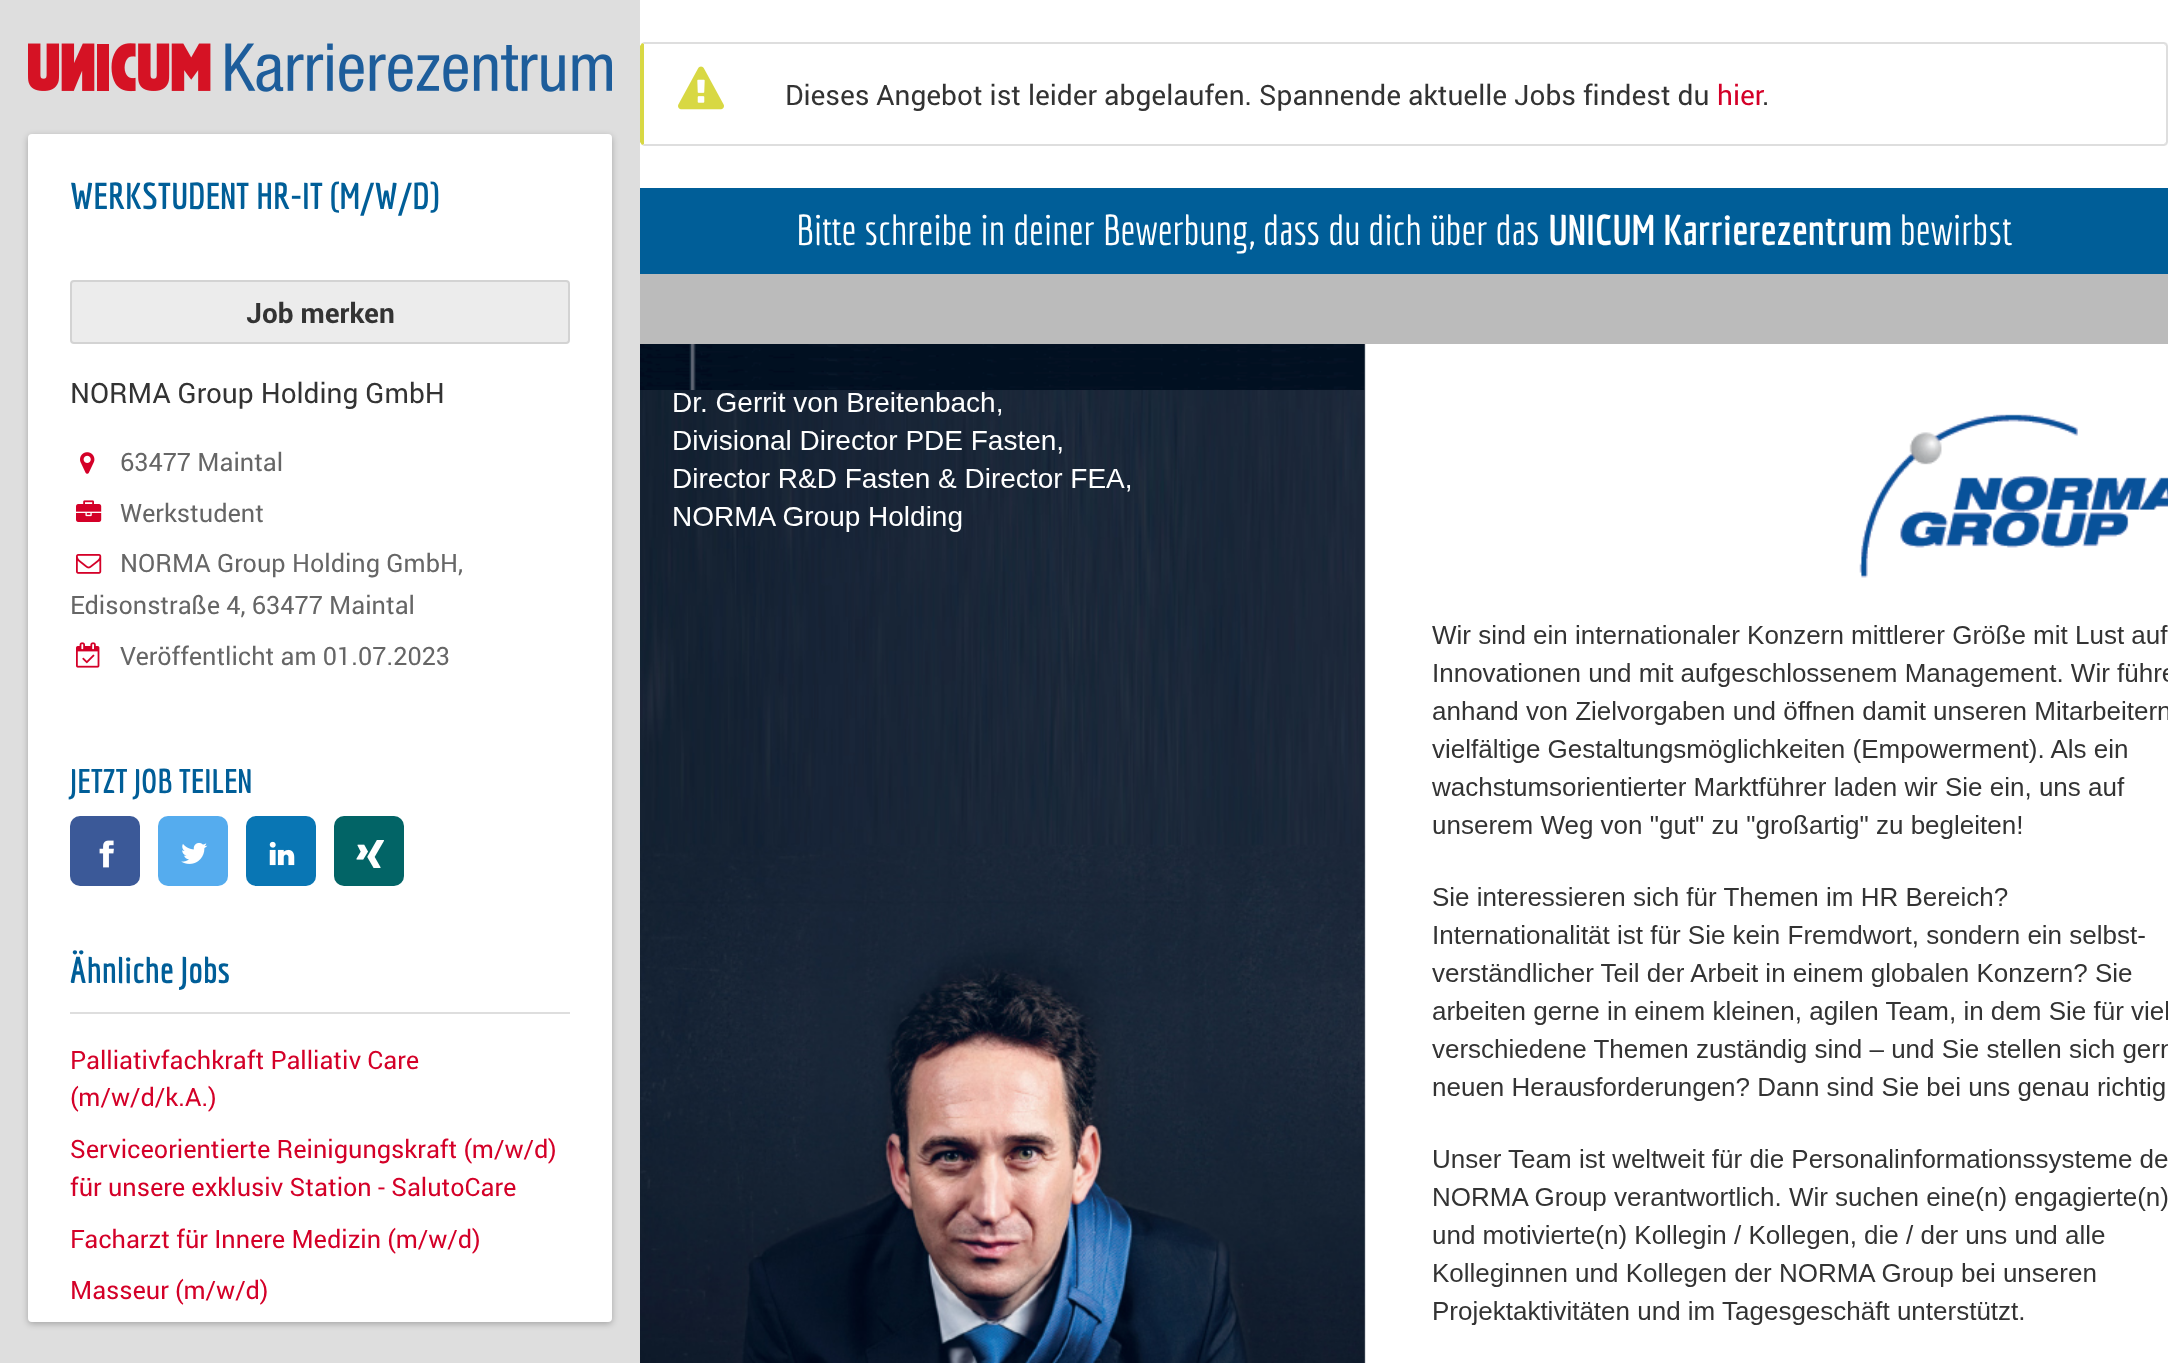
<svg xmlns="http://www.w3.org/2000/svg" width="2168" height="1363">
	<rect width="100%" height="100%" fill="#FFFFFF" />
	<rect x="0" y="0" width="640" height="1363" fill="#DEDEDE" />
	<image x="28" y="43" width="584" height="49" href="assets/img1.png" />
	<rect x="28" y="136" width="584" height="1188" rx="4" fill="#000000" fill-opacity="0.25" filter="blur(3px)" />
	<rect x="28" y="134" width="584" height="1188" rx="4" fill="#FFFFFF" />
	<text x="70" y="209" font-family="Economica" font-size="36.4" font-weight="700" fill="#005E98">WERKSTUDENT HR-IT (M/W/D)</text>
	<rect x="71" y="281" width="498" height="62" rx="3" fill="#ECECEC" stroke="#D3D3D3" stroke-width="2" />
	<text x="246" y="323" font-family="Roboto" font-size="28" font-weight="700" fill="#333333">Job merken</text>
	<text x="70" y="403" font-family="Roboto" font-size="28" fill="#333333">NORMA Group Holding GmbH</text>
	<image x="80" y="452" width="15" height="22" href="assets/img2.png" />
	<text x="120" y="471" font-family="Roboto" font-size="25.25" fill="#666666">63477 Maintal</text>
	<image x="76" y="500" width="26" height="22" href="assets/img3.png" />
	<text x="120" y="522" font-family="Roboto" font-size="25.25" fill="#666666">Werkstudent</text>
	<image x="76" y="554" width="26" height="20" href="assets/img4.png" />
	<g font-family="Roboto" font-size="25.25" fill="#666666">
		<text x="120" y="572">NORMA Group Holding GmbH,</text>
		<text x="70" y="614">Edisonstraße 4, 63477 Maintal</text>
	</g>
	<image x="76" y="642" width="24" height="26" href="assets/img5.png" />
	<text x="120" y="665" font-family="Roboto" font-size="25.25" fill="#666666">Veröffentlicht am 01.07.2023</text>
	<text x="70" y="793" font-family="Economica" font-size="33.5" font-weight="700" fill="#005E98">JETZT JOB TEILEN</text>
	<rect x="70" y="816" width="70" height="70" rx="10" fill="#3B5998" />
	<image x="99" y="840" width="15" height="28" href="assets/img6.png" />
	<rect x="158" y="816" width="70" height="70" rx="10" fill="#55ACEE" />
	<image x="181" y="842" width="27" height="22" href="assets/img7.png" />
	<rect x="246" y="816" width="70" height="70" rx="10" fill="#0976B4" />
	<image x="269" y="841" width="26" height="25" href="assets/img8.png" />
	<rect x="334" y="816" width="70" height="70" rx="10" fill="#026466" />
	<image x="356" y="840" width="28" height="28" href="assets/img9.png" />
	<rect x="70" y="1012" width="500" height="2" fill="#DEDEDE" />
	<text x="70" y="983" font-family="Economica" font-size="36.4" font-weight="700" fill="#005E98">Ähnliche Jobs</text>
	<g font-family="Roboto" font-size="25.25" fill="#D40028">
		<text x="70" y="1069">Palliativfachkraft Palliativ Care</text>
		<text x="70" y="1106">(m/w/d/k.A.)</text>
		<text x="70" y="1158">Serviceorientierte Reinigungskraft (m/w/d)</text>
		<text x="70" y="1196">für unsere exklusiv Station - SalutoCare</text>
		<text x="70" y="1248">Facharzt für Innere Medizin (m/w/d)</text>
		<text x="70" y="1299">Masseur (m/w/d)</text>
	</g>
	<path d="M644 42L642 43L644 44H2164L2165 45L2167 43L2164 42Z" fill="#DEDEDE" />
	<path d="M2168 142V46L2167 43L2165 45L2166 46V126V142L2165 143L2167 145Z" fill="#DEDEDE" />
	<path d="M644 146H2164L2167 145L2165 143L2164 144H644L642 145Z" fill="#DEDEDE" />
	<path d="M644 44L642 43L640 46V142L642 145L644 144Z" fill="#D8D843" />
	<image x="678" y="66" width="46" height="44" href="assets/img10.png" />
	<text x="785" y="105" font-family="Roboto" font-size="28" fill="#333333">Dieses Angebot ist leider abgelaufen. Spannende aktuelle Jobs findest du</text>
	<text x="1717" y="105" font-family="Roboto" font-size="28" fill="#D40028">hier</text>
	<text x="1762" y="105" font-family="Roboto" font-size="28" fill="#333333">.</text>
	<rect x="640" y="188" width="1528" height="86" fill="#005E98" />
	<text x="796" y="245" font-family="Economica" font-size="42" fill="#FFFFFF">Bitte schreibe in deiner Bewerbung, dass du dich über das</text>
	<text x="1548" y="245" font-family="Economica" font-size="42" font-weight="700" fill="#FFFFFF">UNICUM Karrierezentrum</text>
	<text x="1900" y="245" font-family="Economica" font-size="42" fill="#FFFFFF">bewirbst</text>
	<image x="640" y="274" width="1528" height="1089" href="assets/img11.png" />
</svg>
